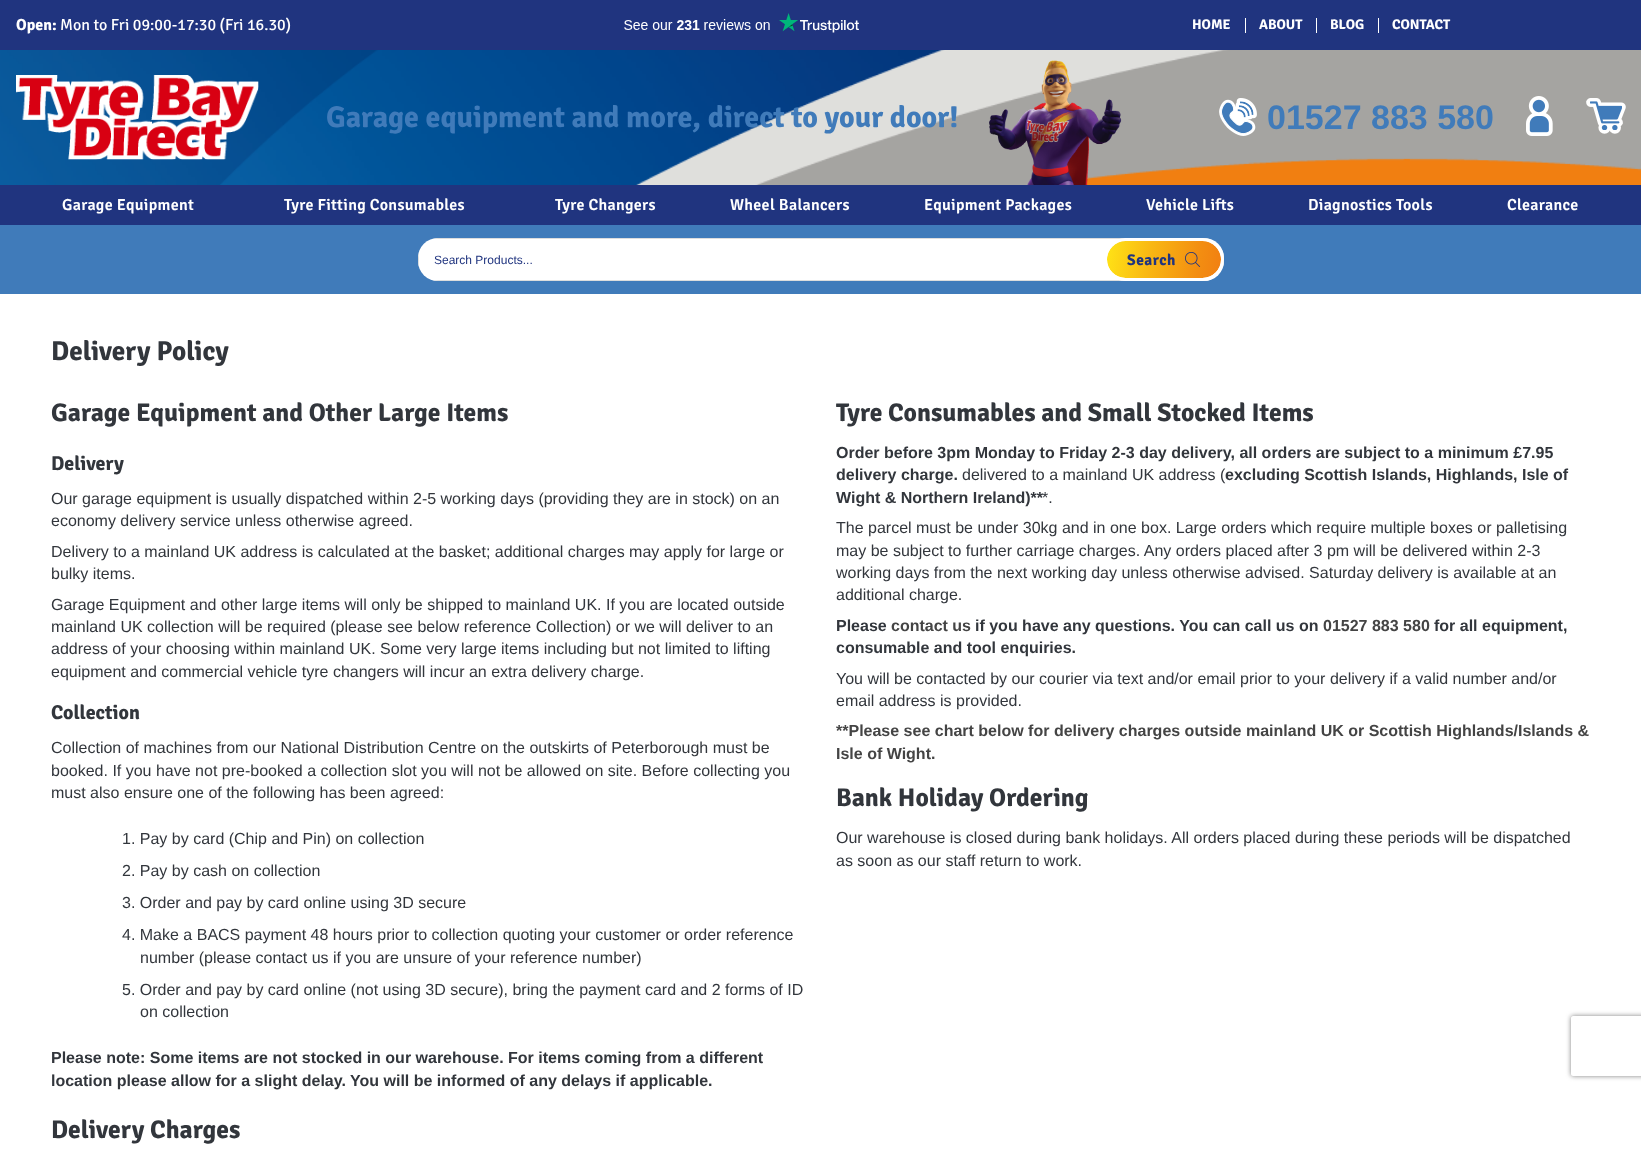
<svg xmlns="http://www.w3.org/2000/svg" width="1641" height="1176">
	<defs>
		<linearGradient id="g1" gradientUnits="userSpaceOnUse" x1="1106" y1="251" x2="1222" y2="268"><stop offset="0" stop-color="#FFE316" /><stop offset="0.37" stop-color="#F9B813" /><stop offset="0.79" stop-color="#F38E11" /><stop offset="1" stop-color="#F17F11" /></linearGradient>
		<clipPath id="clip1"><path d="M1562 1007H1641V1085H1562ZM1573 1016H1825C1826 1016 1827 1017 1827 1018V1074C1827 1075 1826 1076 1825 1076H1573C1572 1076 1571 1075 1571 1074V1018C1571 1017 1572 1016 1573 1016Z" clip-rule="evenodd" /></clipPath>
	</defs>
	<rect width="100%" height="100%" fill="#FFFFFF" />
	<rect x="0" y="0" width="1641" height="50" fill="#20347F" />
	<text x="16" y="30" font-family="Signika" font-size="16" font-weight="700" fill="#FFFFFF">Open:</text>
	<text x="60" y="30" font-family="Signika" font-size="16" fill="#FFFFFF">Mon to Fri 09:00-17:30 (Fri 16.30)</text>
	<image x="624" y="13" width="235" height="20" href="assets/img1.png" />
	<text x="1192" y="29" font-family="Signika" font-size="14" font-weight="700" fill="#FFFFFF">HOME</text>
	<rect x="1245" y="18" width="1" height="15" fill="#FFFFFF" />
	<text x="1259" y="29" font-family="Signika" font-size="14" font-weight="700" fill="#FFFFFF">ABOUT</text>
	<rect x="1316" y="18" width="1" height="15" fill="#FFFFFF" />
	<text x="1330" y="29" font-family="Signika" font-size="14" font-weight="700" fill="#FFFFFF">BLOG</text>
	<rect x="1378" y="18" width="1" height="15" fill="#FFFFFF" />
	<text x="1392" y="29" font-family="Signika" font-size="14" font-weight="700" fill="#FFFFFF">CONTACT</text>
	<image x="0" y="50" width="1641" height="135" href="assets/img2.png" />
	<image x="16" y="75" width="243" height="85" href="assets/img3.png" />
	<text x="326" y="127" font-family="Signika" font-size="30" font-weight="700" fill="#407BBA">Garage equipment and more, direct to your door!</text>
	<image x="989" y="60" width="133" height="125" href="assets/img4.png" />
	<image x="1219" y="98" width="38" height="38" href="assets/img5.png" />
	<text x="1267" y="129" font-family="Liberation Sans" font-size="34" font-weight="700" fill="#407BBA">01527 883 580</text>
	<image x="1526" y="96" width="27" height="40" href="assets/img6.png" />
	<image x="1586" y="98" width="40" height="36" href="assets/img7.png" />
	<rect x="0" y="185" width="1641" height="40" fill="#20347F" />
	<g font-family="Signika" font-size="16" font-weight="600" letter-spacing="0.3" fill="#FFFFFF">
		<text x="62" y="210">Garage Equipment</text>
		<text x="284" y="210">Tyre Fitting Consumables</text>
		<text x="555" y="210">Tyre Changers</text>
		<text x="730" y="210">Wheel Balancers</text>
		<text x="924" y="210">Equipment Packages</text>
		<text x="1146" y="210">Vehicle Lifts</text>
		<text x="1308" y="210">Diagnostics Tools</text>
		<text x="1507" y="210">Clearance</text>
	</g>
	<rect x="0" y="225" width="1641" height="69" fill="#407BBA" />
	<rect x="418" y="238" width="806" height="43" rx="20" fill="#FFFFFF" />
	<path d="M418 258C418 261 418 264 419 267V252ZM438 238L432 239H1210L1204 238ZM1224 258L1223 252V267C1224 264 1224 261 1224 258ZM1204 281L1210 280H432L438 281Z" fill="#DDDDDD" fill-rule="evenodd" />
	<text x="434" y="264" font-family="Liberation Sans" font-size="12" fill="#20347F">Search Products...</text>
	<rect x="1107" y="241" width="114" height="37" rx="18.5" fill="url(#g1)" />
	<rect x="1105.5" y="239.5" width="117" height="40" rx="20" fill="none" stroke="#FFFFFF" stroke-width="3" />
	<text x="1127" y="265" font-family="Signika" font-size="15.5" font-weight="700" letter-spacing="0.5" fill="#20347F">Search</text>
	<image x="1185" y="252" width="16" height="15" href="assets/img8.png" />
	<text x="51" y="360" font-family="Signika" font-size="27.25" font-weight="700" fill="#32363C">Delivery Policy</text>
	<text x="51" y="421" font-family="Signika" font-size="25.6" font-weight="700" fill="#32363C">Garage Equipment and Other Large Items</text>
	<text x="51" y="470" font-family="Signika" font-size="20" font-weight="700" fill="#32363C">Delivery</text>
	<g font-family="Liberation Sans" font-size="16" fill="#32363C">
		<text x="51" y="504">Our garage equipment is usually dispatched within 2-5 working days (providing they are in stock) on an</text>
		<text x="51" y="526">economy delivery service unless otherwise agreed.</text>
		<text x="51" y="557">Delivery to a mainland UK address is calculated at the basket; additional charges may apply for large or</text>
		<text x="51" y="579">bulky items.</text>
		<text x="51" y="610">Garage Equipment and other large items will only be shipped to mainland UK. If you are located outside</text>
		<text x="51" y="632">mainland UK collection will be required (please see below reference Collection) or we will deliver to an</text>
		<text x="51" y="654">address of your choosing within mainland UK. Some very large items including but not limited to lifting</text>
		<text x="51" y="677">equipment and commercial vehicle tyre changers will incur an extra delivery charge.</text>
	</g>
	<text x="51" y="719" font-family="Signika" font-size="20" font-weight="700" fill="#32363C">Collection</text>
	<g font-family="Liberation Sans" font-size="16" fill="#32363C">
		<text x="51" y="753">Collection of machines from our National Distribution Centre on the outskirts of Peterborough must be</text>
		<text x="51" y="776">booked. If you have not pre-booked a collection slot you will not be allowed on site. Before collecting you</text>
		<text x="51" y="798">must also ensure one of the following has been agreed:</text>
		<text x="122" y="844">1. Pay by card (Chip and Pin) on collection</text>
		<text x="122" y="876">2. Pay by cash on collection</text>
		<text x="122" y="908">3. Order and pay by card online using 3D secure</text>
		<text x="122" y="940">4. Make a BACS payment 48 hours prior to collection quoting your customer or order reference</text>
		<text x="140" y="963">number (please contact us if you are unsure of your reference number)</text>
		<text x="122" y="995">5. Order and pay by card online (not using 3D secure), bring the payment card and 2 forms of ID</text>
		<text x="140" y="1017">on collection</text>
	</g>
	<g font-family="Liberation Sans" font-size="16" font-weight="700" fill="#32363C">
		<text x="51" y="1063">Please note: Some items are not stocked in our warehouse. For items coming from a different</text>
		<text x="51" y="1086">location please allow for a slight delay. You will be informed of any delays if applicable.</text>
	</g>
	<text x="836" y="421" font-family="Signika" font-size="25.6" font-weight="700" fill="#32363C">Tyre Consumables and Small Stocked Items</text>
	<g font-family="Liberation Sans" font-size="16" font-weight="700" fill="#32363C">
		<text x="836" y="458">Order before 3pm Monday to Friday 2-3 day delivery, all orders are subject to a minimum £7.95</text>
		<text x="836" y="480">delivery charge.</text>
	</g>
	<text x="962" y="480" font-family="Liberation Sans" font-size="16" fill="#32363C">delivered to a mainland UK address (</text>
	<g font-family="Liberation Sans" font-size="16" font-weight="700" fill="#32363C">
		<text x="1225" y="480">excluding Scottish Islands, Highlands, Isle of</text>
		<text x="836" y="503">Wight &amp; Northern Ireland)**</text>
	</g>
	<g font-family="Liberation Sans" font-size="16" fill="#32363C">
		<text x="1042" y="503">*.</text>
		<text x="836" y="533">The parcel must be under 30kg and in one box. Large orders which require multiple boxes or palletising</text>
		<text x="836" y="556">may be subject to further carriage charges. Any orders placed after 3 pm will be delivered within 2-3</text>
		<text x="836" y="578">working days from the next working day unless otherwise advised. Saturday delivery is available at an</text>
		<text x="836" y="600">additional charge.</text>
	</g>
	<text x="836" y="631" font-family="Liberation Sans" font-size="16" font-weight="700" fill="#32363C">Please</text>
	<text x="891" y="631" font-family="Liberation Sans" font-size="16" font-weight="700" fill="#444444">contact us</text>
	<text x="975" y="631" font-family="Liberation Sans" font-size="16" font-weight="700" fill="#32363C">if you have any questions. You can call us on</text>
	<text x="1323" y="631" font-family="Liberation Sans" font-size="16" font-weight="700" fill="#444444">01527 883 580</text>
	<g font-family="Liberation Sans" font-size="16" font-weight="700" fill="#32363C">
		<text x="1434" y="631">for all equipment,</text>
		<text x="836" y="653">consumable and tool enquiries.</text>
	</g>
	<g font-family="Liberation Sans" font-size="16" fill="#32363C">
		<text x="836" y="684">You will be contacted by our courier via text and/or email prior to your delivery if a valid number and/or</text>
		<text x="836" y="706">email address is provided.</text>
	</g>
	<g font-family="Liberation Sans" font-size="16" font-weight="700" fill="#444444">
		<text x="836" y="736">**Please see chart below for delivery charges outside mainland UK or Scottish Highlands/Islands &amp;</text>
		<text x="836" y="759">Isle of Wight.</text>
	</g>
	<text x="836" y="806" font-family="Signika" font-size="25.6" font-weight="700" fill="#32363C">Bank Holiday Ordering</text>
	<g font-family="Liberation Sans" font-size="16" fill="#32363C">
		<text x="836" y="843">Our warehouse is closed during bank holidays. All orders placed during these periods will be dispatched</text>
		<text x="836" y="866">as soon as our staff return to work.</text>
	</g>
	<text x="51" y="1138" font-family="Signika" font-size="25.6" font-weight="700" fill="#32363C">Delivery Charges</text>
	<g clip-path="url(#clip1)">
		<rect x="1571" y="1016" width="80" height="60" rx="2" fill="#808080" filter="blur(2.5px)" />
	</g>
</svg>
